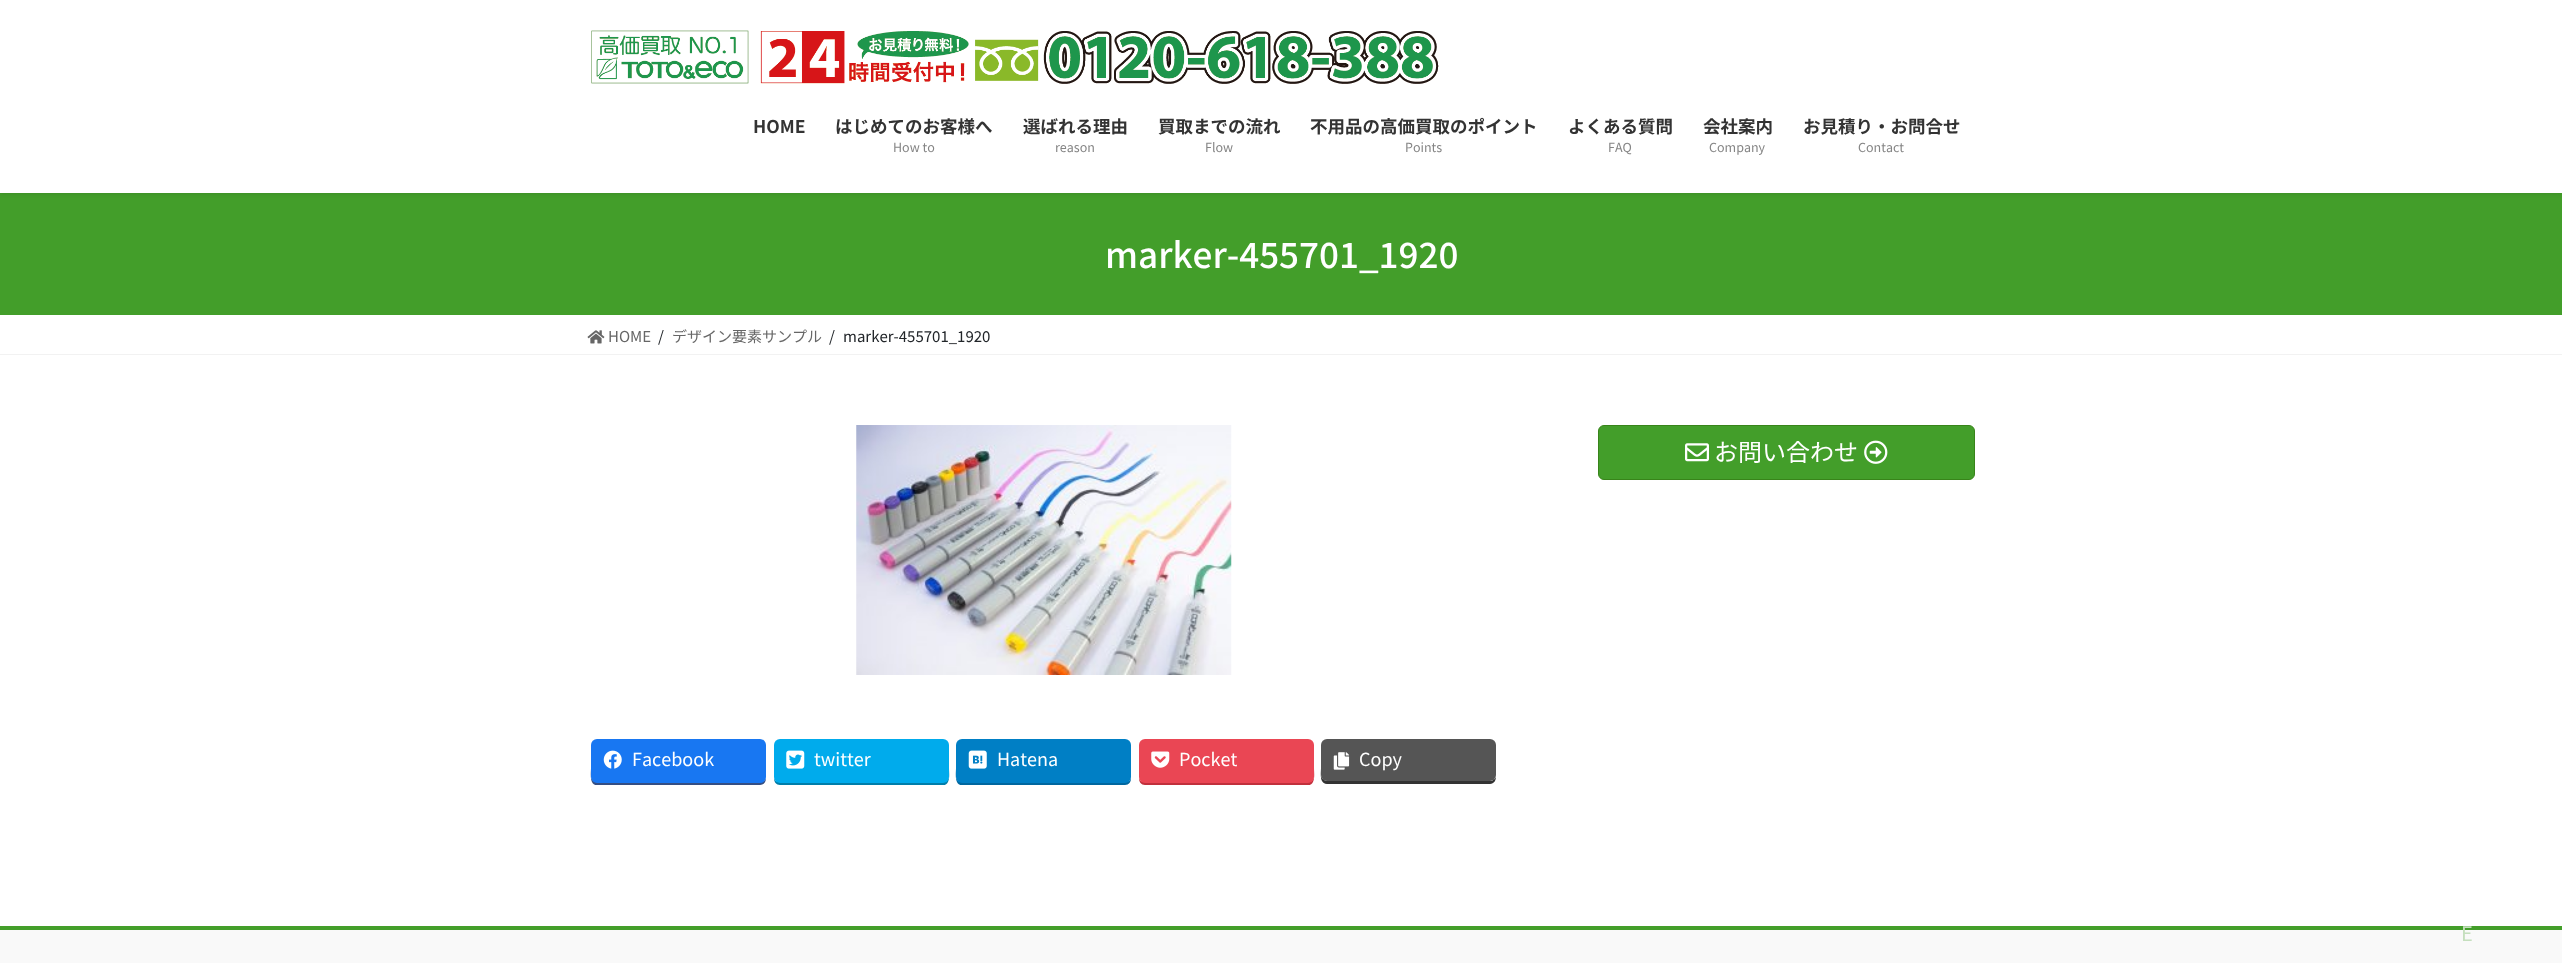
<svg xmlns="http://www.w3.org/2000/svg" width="2562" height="963">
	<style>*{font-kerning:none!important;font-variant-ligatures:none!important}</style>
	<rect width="100%" height="100%" fill="#FFFFFF" />
	<rect x="0" y="193" width="2562" height="122" fill="#439E2A" />
	<rect x="0" y="1" width="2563" height="193" fill="#000000" fill-opacity="0.1" filter="blur(2px)" />
	<rect x="0" y="0" width="2562" height="193" fill="#FFFFFF" />
	<image x="591" y="30" width="848" height="54" href="assets/img1.png" />
	<g font-family="Noto Sans JP" font-size="17.5" font-weight="700" fill="#333333">
		<text x="753" y="133">HOME</text>
		<text x="835" y="133">はじめてのお客様へ</text>
	</g>
	<text x="893" y="152" font-family="Noto Sans JP" font-size="12.5" fill="#858585">How to</text>
	<text x="1023" y="133" font-family="Noto Sans JP" font-size="17.5" font-weight="700" fill="#333333">選ばれる理由</text>
	<text x="1055" y="152" font-family="Noto Sans JP" font-size="12.5" fill="#858585">reason</text>
	<text x="1158" y="133" font-family="Noto Sans JP" font-size="17.5" font-weight="700" fill="#333333">買取までの流れ</text>
	<text x="1205" y="152" font-family="Noto Sans JP" font-size="12.5" fill="#858585">Flow</text>
	<text x="1310" y="133" font-family="Noto Sans JP" font-size="17.5" font-weight="700" fill="#333333">不用品の高価買取のポイント</text>
	<text x="1405" y="152" font-family="Noto Sans JP" font-size="12.5" fill="#858585">Points</text>
	<text x="1568" y="133" font-family="Noto Sans JP" font-size="17.5" font-weight="700" fill="#333333">よくある質問</text>
	<text x="1608" y="152" font-family="Noto Sans JP" font-size="12.5" fill="#858585">FAQ</text>
	<text x="1703" y="133" font-family="Noto Sans JP" font-size="17.5" font-weight="700" fill="#333333">会社案内</text>
	<text x="1709" y="152" font-family="Noto Sans JP" font-size="12.5" fill="#858585">Company</text>
	<text x="1803" y="133" font-family="Noto Sans JP" font-size="17.5" font-weight="700" fill="#333333">お見積り・お問合せ</text>
	<text x="1858" y="152" font-family="Noto Sans JP" font-size="12.5" fill="#858585">Contact</text>
	<text x="1105" y="268" font-family="Noto Sans JP" font-size="35" font-weight="500" fill="#FFFFFF">marker-455701_1920</text>
	<rect x="0" y="354" width="2562" height="1" fill="#F2F2F2" />
	<image x="587" y="330" width="18" height="14" href="assets/img2.png" />
	<text x="608" y="342" font-family="Noto Sans JP" font-size="15" fill="#666666">HOME</text>
	<text x="658" y="342" font-family="Noto Sans JP" font-size="15" fill="#212529">/</text>
	<text x="672" y="342" font-family="Noto Sans JP" font-size="15" fill="#666666">デザイン要素サンプル</text>
	<g font-family="Noto Sans JP" font-size="15" fill="#212529">
		<text x="829" y="342">/</text>
		<text x="843" y="342">marker-455701_1920</text>
	</g>
	<rect x="1598.5" y="425.5" width="376" height="54" rx="5.5" fill="#439E2A" stroke="#38841A" />
	<image x="1685" y="443" width="24" height="19" href="assets/img3.png" />
	<text x="1714" y="461" font-family="Noto Sans JP" font-size="24" fill="#FFFFFF">お問い合わせ</text>
	<image x="1864" y="440" width="24" height="24" href="assets/img4.png" />
	<image x="856" y="425" width="376" height="250" href="assets/img5.png" />
	<path d="M591 745V768C591 773 589 785 597 785H760C764 785 766 782 766 778C765 781 763 782 760 782H598C594 782 591 780 591 776Z" fill="#344E84" />
	<rect x="591" y="739" width="175" height="44" rx="6" fill="#1877F2" />
	<image x="603" y="750" width="19" height="19" href="assets/img6.png" />
	<text x="632" y="766" font-family="Noto Sans JP" font-size="18" fill="#FFFFFF">Facebook</text>
	<path d="M774 778C774 782 776 785 780 785H943C951 785 949 773 949 768V745V776C949 780 946 782 942 782H780C777 782 775 781 774 778Z" fill="#007EAA" />
	<rect x="774" y="739" width="175" height="44" rx="6" fill="#00ABEC" />
	<image x="786" y="750" width="19" height="19" href="assets/img7.png" />
	<text x="814" y="766" font-family="Noto Sans JP" font-size="18" fill="#FFFFFF">twitter</text>
	<path d="M956 745V768C956 773 954 785 962 785H1125C1129 785 1131 782 1131 778C1130 781 1128 782 1125 782H962C959 782 956 780 956 776Z" fill="#00679F" />
	<rect x="956" y="739" width="175" height="44" rx="6" fill="#007FC5" />
	<image x="968" y="750" width="19" height="19" href="assets/img8.png" />
	<text x="997" y="766" font-family="Noto Sans JP" font-size="18" fill="#FFFFFF">Hatena</text>
	<path d="M1139 778C1139 782 1141 785 1145 785H1308C1316 785 1314 773 1314 768V745V776C1314 780 1311 782 1308 782H1145C1142 782 1140 781 1139 778Z" fill="#C1303C" />
	<rect x="1139" y="739" width="175" height="44" rx="6" fill="#EA4654" />
	<image x="1151" y="751" width="19" height="17" href="assets/img9.png" />
	<text x="1179" y="766" font-family="Noto Sans JP" font-size="18" fill="#FFFFFF">Pocket</text>
	<path d="M1321 745V768C1321 773 1319 784 1327 784H1490C1494 784 1496 780 1496 777C1495 779 1493 781 1490 781H1328C1324 781 1321 778 1321 775Z" fill="#333333" />
	<rect x="1321" y="739" width="175" height="42" rx="6" fill="#555555" />
	<image x="1333" y="752" width="17" height="18" href="assets/img10.png" />
	<text x="1359" y="766" font-family="Noto Sans JP" font-size="18" fill="#FFFFFF">Copy</text>
	<rect x="0" y="930" width="2562" height="33" fill="#F9F9F9" />
	<rect x="0" y="926" width="2562" height="4" fill="#439E2A" />
	<text x="2461" y="941" font-family="Noto Sans JP" font-size="20" fill="#C5DFBE">E</text>
</svg>
